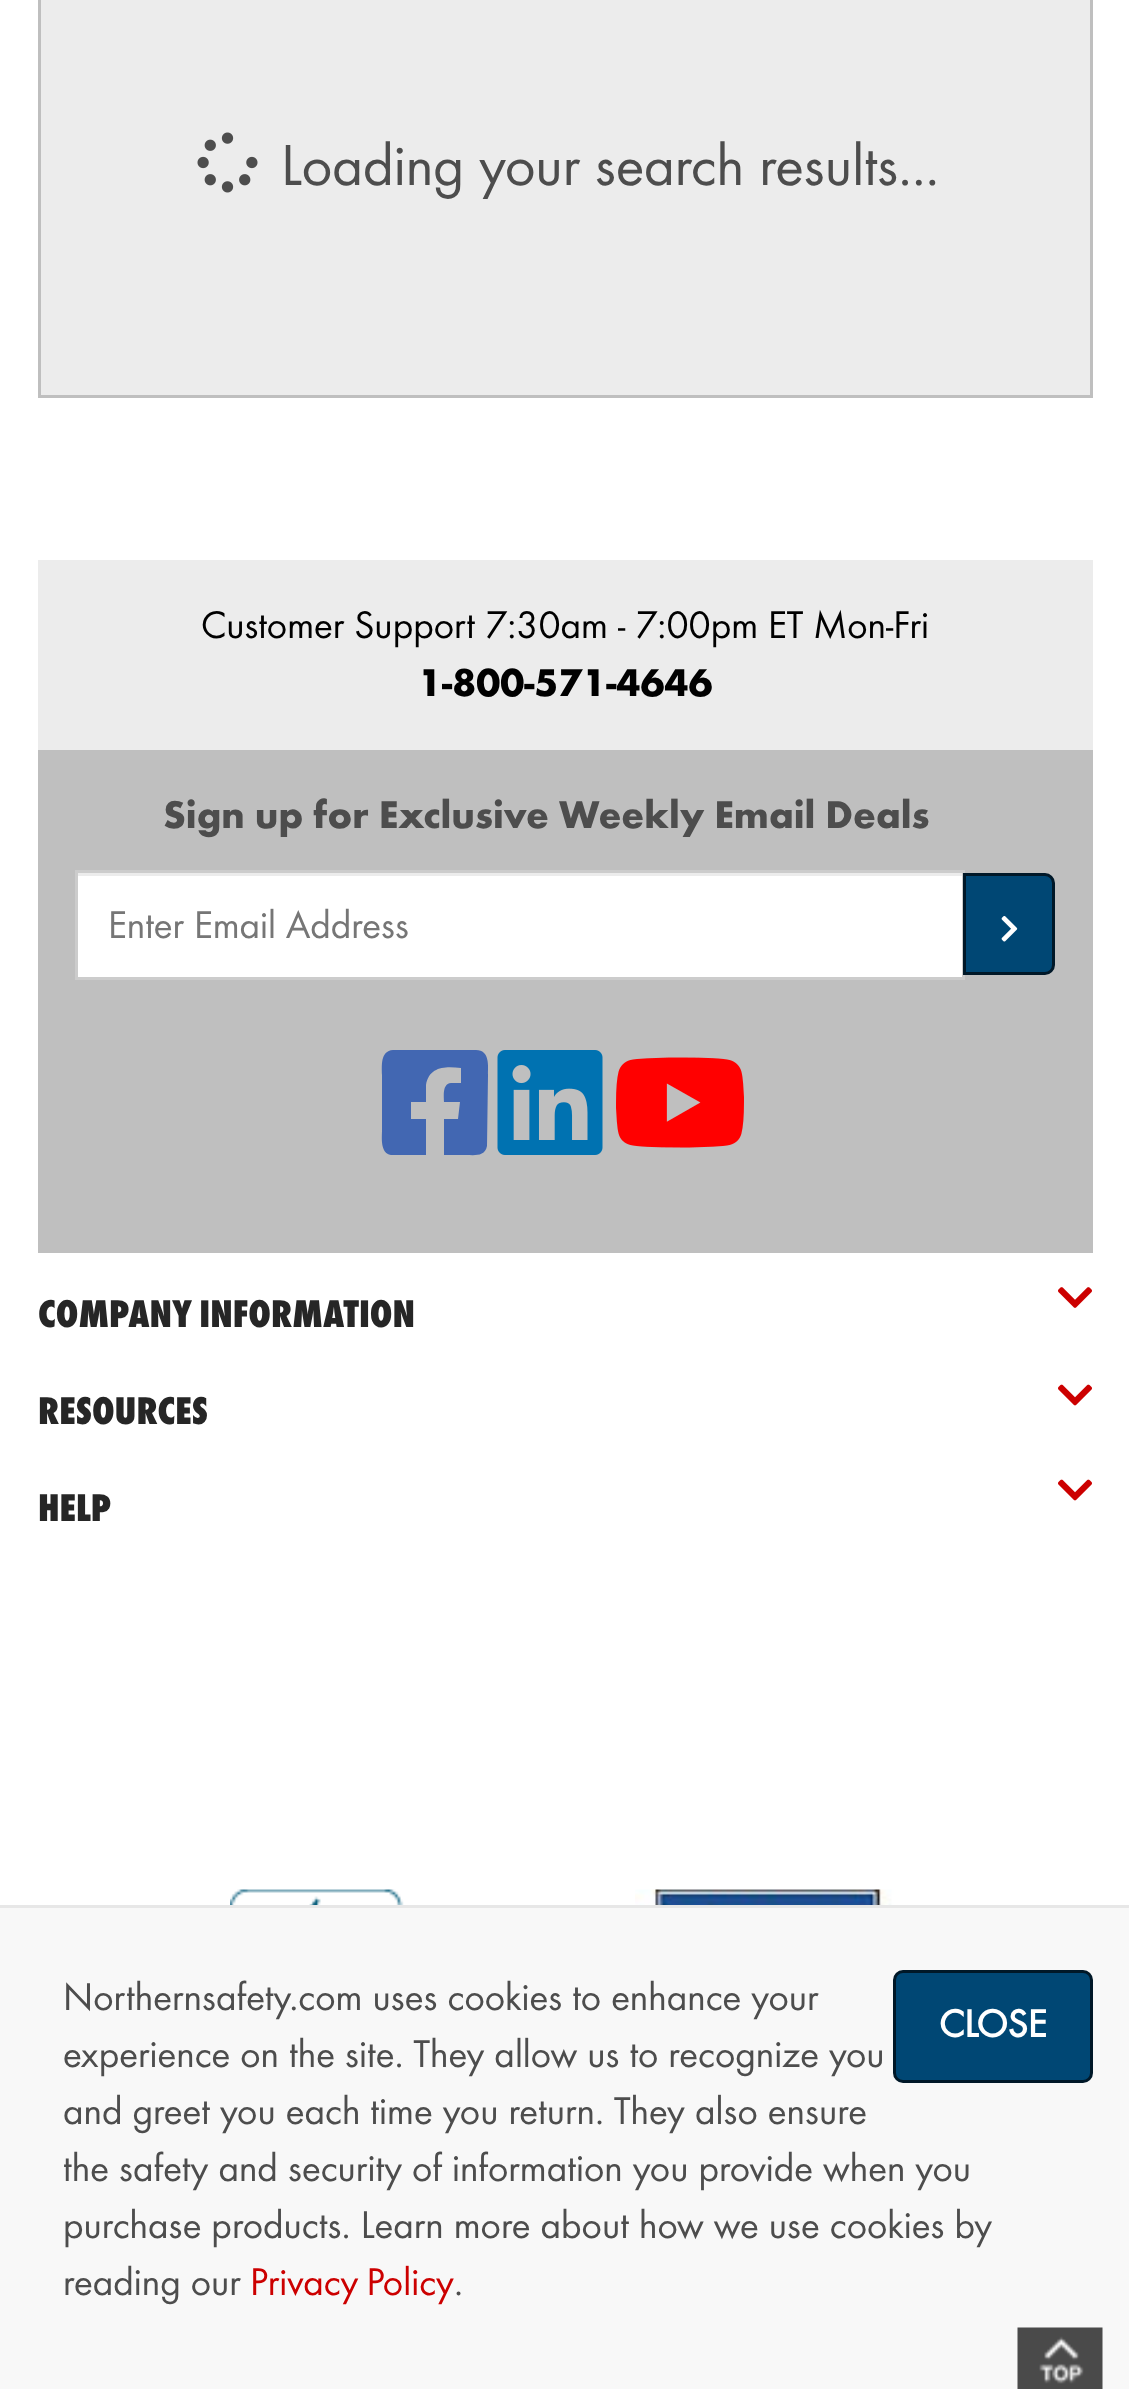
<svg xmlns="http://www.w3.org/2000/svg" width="1129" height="2389">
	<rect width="100%" height="100%" fill="#FFFFFF" />
	<rect x="39.5" y="-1.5" width="1052" height="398" fill="#ECECEC" stroke="#BFBFBF" stroke-width="3" />
	<image x="197" y="132" width="61" height="61" href="assets/img1.png" />
	<text x="281" y="185" font-family="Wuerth" font-size="60" fill="#4D4D4D">Loading your search results...</text>
	<rect x="38" y="560" width="1055" height="190" fill="#ECECEC" />
	<text x="201" y="638" font-family="Wuerth" font-size="40" fill="#000000">Customer Support 7:30am - 7:00pm ET Mon-Fri</text>
	<text x="418" y="696" font-family="Wuerth" font-size="40" font-weight="700" fill="#000000">1-800-571-4646</text>
	<rect x="38" y="750" width="1055" height="503" fill="#BFBFBF" />
	<text x="163" y="828" font-family="Wuerth" font-size="40" font-weight="700" fill="#4D4D4D">Sign up for Exclusive Weekly Email Deals</text>
	<rect x="78" y="876" width="884" height="101" fill="#FFFFFF" />
	<rect x="78" y="873" width="885" height="3" fill="#ECECEC" />
	<rect x="76.5" y="871.5" width="887" height="107" fill="none" stroke="#CCCCCC" stroke-width="3" />
	<text x="108" y="938" font-family="Wuerth" font-size="40" fill="#767676">Enter Email Address</text>
	<path d="M964.5 874.5H1045C1049.5 874.5 1053.5 878.5 1053.5 883V965C1053.5 969.5 1049.5 973.5 1045 973.5H964.5Z" fill="#004774" stroke="#001828" stroke-width="3" />
	<image x="1001" y="916" width="17" height="26" href="assets/img2.png" />
	<path d="M476 1050C490 1050 488 1066 488 1075L487 1146C485 1157 474 1155 466 1155H444V1119H458L460 1102H444C444 1096 442 1084 451 1083H461V1068C446 1066 429 1066 426 1085V1102H411V1119H426V1155H391C380 1153 382 1138 382 1130V1075C382 1066 380 1051 393 1050Z" fill="#4267B2" />
	<image x="497" y="1050" width="106" height="105" href="assets/img3.png" />
	<image x="616" y="1057" width="128" height="91" href="assets/img4.png" />
	<text x="38" y="1327" font-family="Wuerth" font-size="40" font-weight="800" fill="#262626">COMPANY INFORMATION</text>
	<image x="1058" y="1287" width="34" height="21" href="assets/img5.png" />
	<text x="38" y="1424" font-family="Wuerth" font-size="40" font-weight="800" fill="#262626">RESOURCES</text>
	<image x="1058" y="1384" width="34" height="22" href="assets/img6.png" />
	<image x="1058" y="1479" width="34" height="22" href="assets/img6.png" />
	<text x="38" y="1521" font-family="Wuerth" font-size="40" font-weight="800" fill="#262626">HELP</text>
	<image x="230" y="1889" width="174" height="16" href="assets/img7.png" />
	<image x="635" y="1889" width="268" height="16" href="assets/img8.png" />
	<rect x="0" y="1908" width="1129" height="481" fill="#F8F8F8" />
	<rect x="0" y="1905" width="1129" height="3" fill="#E7E7E7" />
	<g font-family="Wuerth" font-size="40" fill="#4D4D4D">
		<text x="63" y="2010">Northernsafety.com uses cookies to enhance your</text>
		<text x="63" y="2067">experience on the site. They allow us to recognize you</text>
		<text x="63" y="2124">and greet you each time you return. They also ensure</text>
		<text x="63" y="2181">the safety and security of information you provide when you</text>
		<text x="63" y="2238">purchase products. Learn more about how we use cookies by</text>
		<text x="63" y="2295">reading our</text>
	</g>
	<text x="250" y="2295" word-spacing="-2" font-family="Wuerth" font-size="40" fill="#CC0000">Privacy Policy</text>
	<text x="454" y="2295" font-family="Wuerth" font-size="40" fill="#4D4D4D">.</text>
	<rect x="894.5" y="1971.5" width="197" height="110" rx="8.5" fill="#004774" stroke="#001828" stroke-width="3" />
	<text x="939" y="2037" font-family="'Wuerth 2'" font-size="40" font-weight="700" fill="#FFFFFF">CLOSE</text>
	<image x="1017" y="2327" width="86" height="62" href="assets/img9.png" />
</svg>
